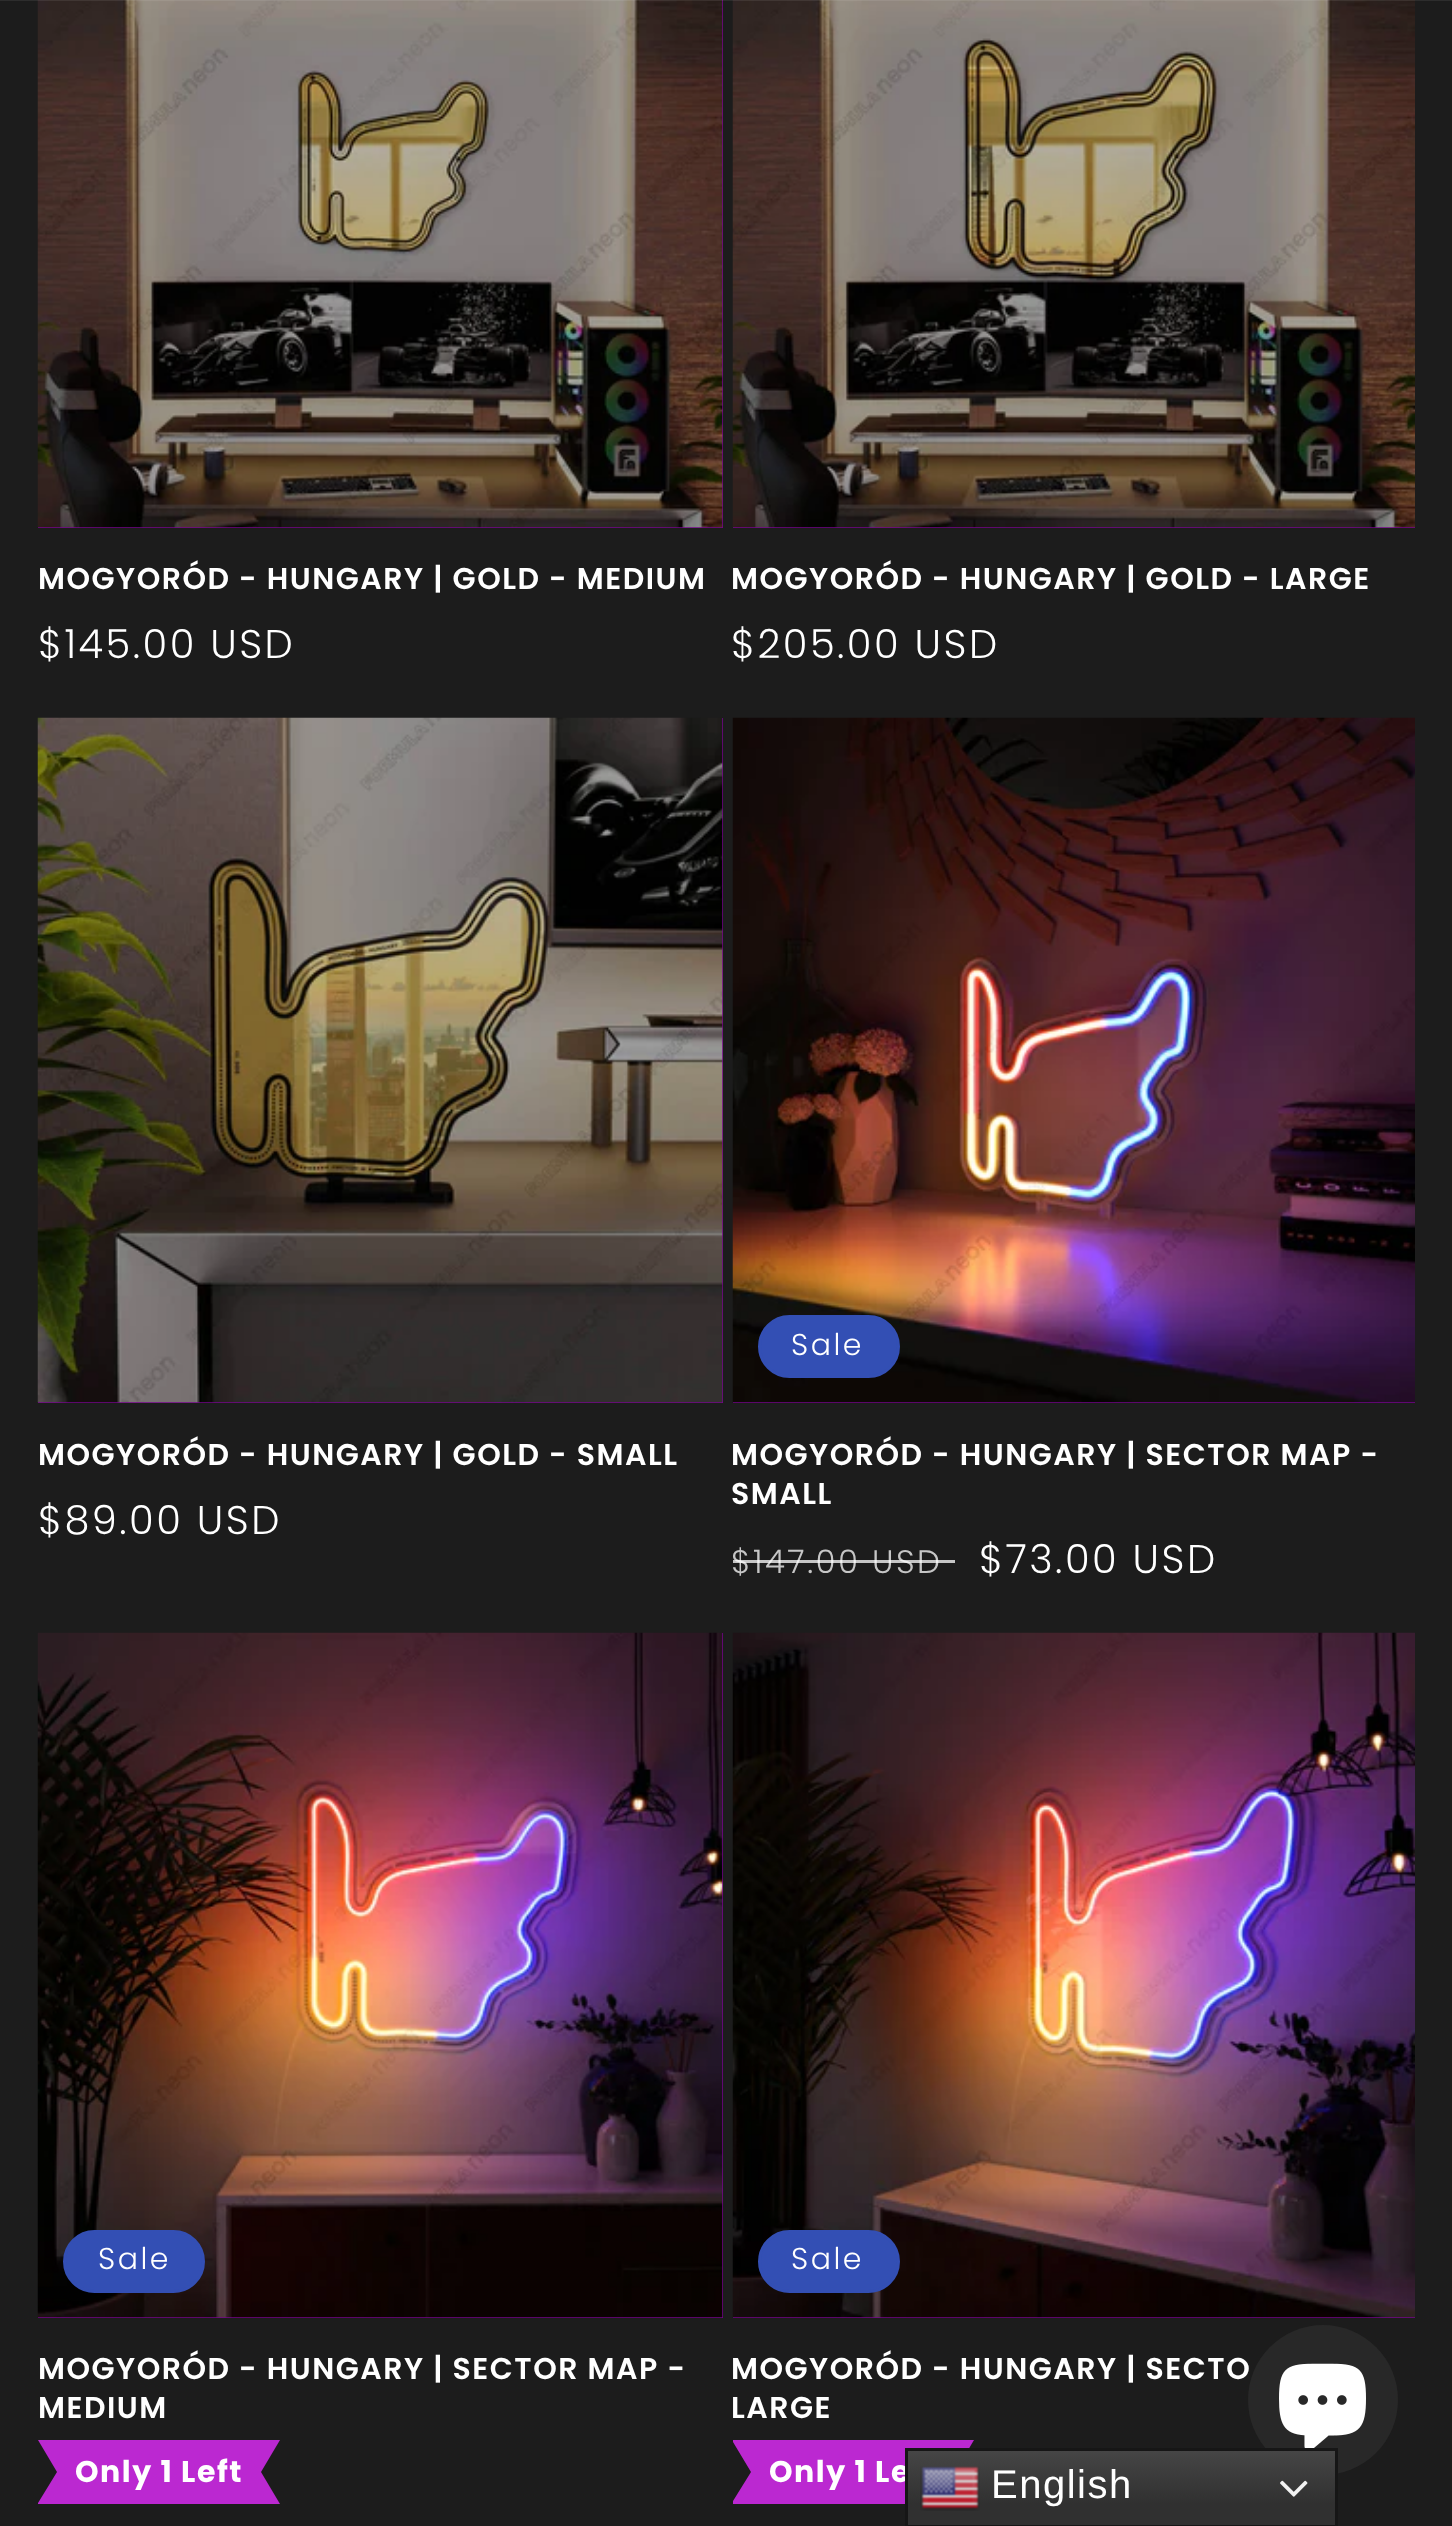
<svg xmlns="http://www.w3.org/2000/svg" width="1452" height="2526">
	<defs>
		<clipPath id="clip1"><rect x="770" y="2453" width="168" height="40" /></clipPath>
		<linearGradient id="g1" gradientUnits="userSpaceOnUse" x1="1121" y1="2448" x2="1121" y2="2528"><stop offset="0" stop-color="#474747" /><stop offset="0.7" stop-color="#303030" /></linearGradient>
	</defs>
	<rect width="100%" height="100%" fill="#1C1C1C" />
	<rect x="38" y="0" width="685" height="528" fill="#76048C" />
	<image x="37" y="0" width="686" height="528" href="assets/img1.png" />
	<rect x="733" y="527" width="682" height="1" fill="#76048C" />
	<image x="732" y="0" width="683" height="528" href="assets/img2.png" />
	<rect x="0" y="0" width="1452" height="1" fill="#FFFFFF" fill-opacity="0.08" />
	<text x="38" y="589" font-family="Poppins" font-size="30" font-weight="600" letter-spacing="1.5" fill="#FFFFFF">MOGYORÓD - HUNGARY | GOLD - MEDIUM</text>
	<text x="38" y="658" font-family="Poppins" font-size="40" font-weight="300" letter-spacing="2.5" fill="#FFFFFF">$145.00 USD</text>
	<text x="731" y="589" font-family="Poppins" font-size="30" font-weight="600" letter-spacing="1.5" fill="#FFFFFF">MOGYORÓD - HUNGARY | GOLD - LARGE</text>
	<text x="731" y="658" font-family="Poppins" font-size="40" font-weight="300" letter-spacing="2.5" fill="#FFFFFF">$205.00 USD</text>
	<rect x="38" y="718" width="685" height="685" fill="#76048C" />
	<image x="37" y="717" width="686" height="686" href="assets/img3.png" />
	<text x="38" y="1465" font-family="Poppins" font-size="30" font-weight="600" letter-spacing="1.5" fill="#FFFFFF">MOGYORÓD - HUNGARY | GOLD - SMALL</text>
	<text x="38" y="1534" font-family="Poppins" font-size="40" font-weight="300" letter-spacing="2.5" fill="#FFFFFF">$89.00 USD</text>
	<rect x="733" y="1402" width="682" height="1" fill="#76048C" />
	<image x="732" y="717" width="683" height="686" href="assets/img4.png" />
	<rect x="759.5" y="1316.5" width="139" height="60" rx="30" fill="#334FB4" stroke="#334FB4" stroke-width="3" />
	<text x="791" y="1355" font-family="Poppins" font-size="30" font-weight="300" letter-spacing="2.5" fill="#FFFFFF">Sale</text>
	<g font-family="Poppins" font-size="30" font-weight="600" letter-spacing="1.5" fill="#FFFFFF">
		<text x="731" y="1465">MOGYORÓD - HUNGARY | SECTOR MAP -</text>
		<text x="731" y="1504">SMALL</text>
	</g>
	<text x="731" y="1573" font-family="Poppins" font-size="32.5" font-weight="300" letter-spacing="2.5" fill="#C6C6C6">$147.00 USD</text>
	<rect x="733" y="1560" width="222" height="3" fill="#FFFFFF" fill-opacity="0.75" />
	<text x="979" y="1573" font-family="Poppins" font-size="40" font-weight="300" letter-spacing="2.5" fill="#FFFFFF">$73.00 USD</text>
	<rect x="38" y="1633" width="685" height="685" fill="#76048C" />
	<image x="37" y="1632" width="686" height="686" href="assets/img5.png" />
	<rect x="64.5" y="2231.5" width="139" height="60" rx="30" fill="#334FB4" stroke="#334FB4" stroke-width="3" />
	<text x="98" y="2269" font-family="Poppins" font-size="30" font-weight="300" letter-spacing="2.5" fill="#FFFFFF">Sale</text>
	<g font-family="Poppins" font-size="30" font-weight="600" letter-spacing="1.5" fill="#FFFFFF">
		<text x="38" y="2379">MOGYORÓD - HUNGARY | SECTOR MAP -</text>
		<text x="38" y="2418">MEDIUM</text>
	</g>
	<path d="M38 2440H280L261 2472L280 2504H38V2503L57 2472Z" fill="#BB28D1" />
	<text x="75" y="2482" font-family="Poppins" font-size="30" font-weight="700" letter-spacing="1.5" fill="#FFFFFF">Only 1 Left</text>
	<rect x="733" y="2317" width="682" height="1" fill="#76048C" />
	<image x="732" y="1632" width="683" height="686" href="assets/img6.png" />
	<rect x="759.5" y="2231.5" width="139" height="60" rx="30" fill="#334FB4" stroke="#334FB4" stroke-width="3" />
	<text x="791" y="2269" font-family="Poppins" font-size="30" font-weight="300" letter-spacing="2.5" fill="#FFFFFF">Sale</text>
	<g font-family="Poppins" font-size="30" font-weight="600" letter-spacing="1.5" fill="#FFFFFF">
		<text x="731" y="2379">MOGYORÓD - HUNGARY | SECTO</text>
		<text x="731" y="2418">LARGE</text>
	</g>
	<path d="M733 2440H974L955 2472L974 2504H733V2501L751 2472L733 2442Z" fill="#BB28D1" />
	<g clip-path="url(#clip1)">
		<text x="769" y="2482" font-family="Poppins" font-size="30" font-weight="700" letter-spacing="1.5" fill="#FFFFFF">Only 1 Le</text>
	</g>
	<circle cx="1323" cy="2400" r="75" fill="#282828" />
	<image x="1279" y="2363" width="87" height="85" href="assets/img7.png" />
	<rect x="908" y="2451" width="427" height="74" fill="url(#g1)" />
	<rect x="906.5" y="2449.5" width="430" height="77" fill="none" stroke="#161616" stroke-width="3" />
	<image x="920" y="2466" width="60" height="45" href="assets/img8.png" />
	<text x="991" y="2498" font-family="Liberation Sans" font-size="40" letter-spacing="1.5" fill="#FFFFFF">English</text>
	<image x="1280" y="2480" width="28" height="17" href="assets/img9.png" />
</svg>
